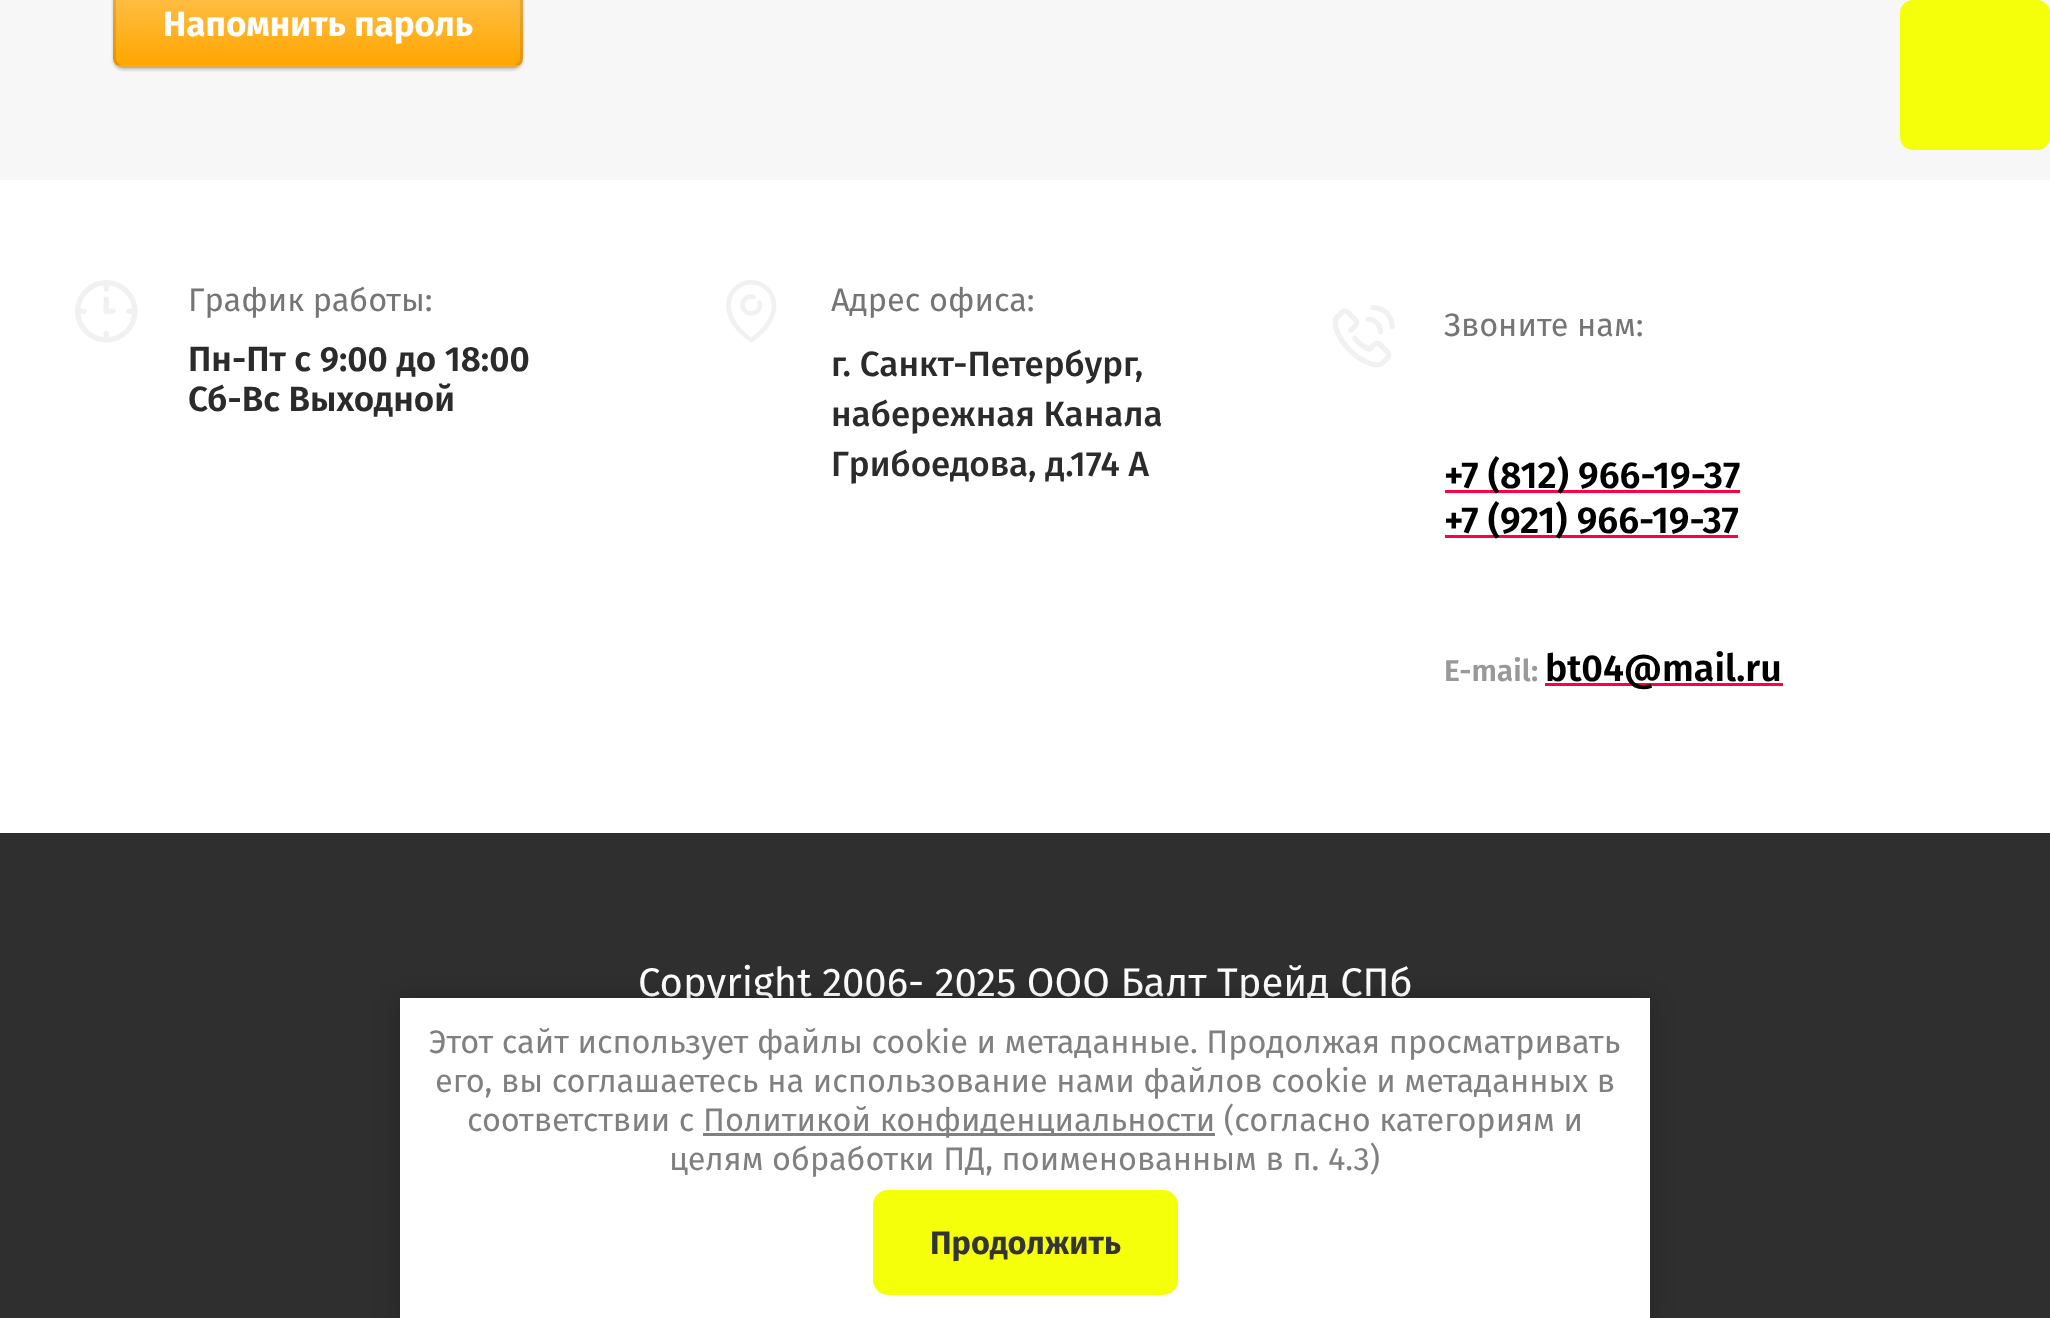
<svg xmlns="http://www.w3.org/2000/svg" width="2050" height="1318">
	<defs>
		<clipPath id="clip1"><rect x="113" y="-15" width="410" height="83" rx="10" /></clipPath>
		<linearGradient id="g1" gradientUnits="userSpaceOnUse" x1="318" y1="-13" x2="318" y2="65"><stop offset="0" stop-color="#FFC14E" /><stop offset="1" stop-color="#FFA601" /></linearGradient>
		<linearGradient id="g2" gradientUnits="userSpaceOnUse" x1="318" y1="65" x2="318" y2="143"><stop offset="0" stop-color="#FFC14E" /><stop offset="1" stop-color="#FFA601" /></linearGradient>
	</defs>
	<rect width="100%" height="100%" fill="#FFFFFF" />
	<rect x="0" y="0" width="2050" height="180" fill="#F7F7F7" />
	<rect x="113" y="-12" width="410" height="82" rx="10" fill="#000000" fill-opacity="0.2" filter="blur(1.5px)" />
	<g clip-path="url(#clip1)">
		<rect x="113" y="0" width="410" height="65" fill="url(#g1)" />
		<rect x="113" y="65" width="410" height="3" fill="url(#g2)" />
	</g>
	<rect x="114.5" y="-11.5" width="407" height="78" rx="8.5" fill="none" stroke="#000000" stroke-opacity="0.1" stroke-width="3" />
	<text x="163" y="36" font-family="Fira Sans" font-size="35" font-weight="700" fill="#FFFFFF">Напомнить пароль</text>
	<rect x="1900" y="0" width="150" height="150" rx="13" fill="#F6FF0A" />
	<image x="75" y="280" width="63" height="63" href="assets/img1.png" />
	<text x="188" y="311" font-family="Fira Sans" font-size="32.5" fill="#757575">График работы:</text>
	<g font-family="Fira Sans" font-size="35" font-weight="600" fill="#2B2B2B">
		<text x="188" y="371">Пн-Пт с 9:00 до 18:00</text>
		<text x="188" y="411">Сб-Вс Выходной</text>
	</g>
	<image x="726" y="280" width="51" height="63" href="assets/img2.png" />
	<text x="831" y="311" font-family="Fira Sans" font-size="32.5" fill="#757575">Адрес офиса:</text>
	<g font-family="Fira Sans" font-size="35" font-weight="500" fill="#2B2B2B">
		<text x="831" y="376">г. Санкт-Петербург,</text>
		<text x="831" y="426">набережная Канала</text>
		<text x="831" y="476">Грибоедова, д.174 А</text>
	</g>
	<image x="1333" y="305" width="62" height="63" href="assets/img3.png" />
	<text x="1444" y="336" font-family="Fira Sans" font-size="32.5" fill="#757575">Звоните нам:</text>
	<rect x="1445" y="490" width="295" height="3" fill="#FF0045" />
	<text x="1444" y="488" font-family="Fira Sans" font-size="37.5" font-weight="600" fill="#000000">+7 (812) 966-19-37</text>
	<rect x="1445" y="535" width="293" height="3" fill="#FF0045" />
	<text x="1444" y="533" font-family="Fira Sans" font-size="37.5" font-weight="600" fill="#000000">+7 (921) 966-19-37</text>
	<text x="1444" y="681" font-family="Fira Sans" font-size="30" font-weight="600" fill="#999999">E-mail:</text>
	<rect x="1545" y="683" width="238" height="3" fill="#FF0045" />
	<text x="1545" y="681" font-family="Fira Sans" font-size="37.5" font-weight="600" fill="#000000">bt04@mail.ru</text>
	<rect x="0" y="833" width="2050" height="485" fill="#2F2F2F" />
	<text x="638" y="996" font-family="Fira Sans" font-size="40" fill="#FFFFFF">Copyright 2006- 2025 ООО Балт Трейд СПб</text>
	<rect x="400" y="1000" width="1250" height="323" fill="#000000" fill-opacity="0.23" filter="blur(12.5px)" />
	<rect x="400" y="998" width="1250" height="320" fill="#FFFFFF" />
	<g font-family="Fira Sans" font-size="32.5" fill="#808080">
		<text x="429" y="1053">Этот сайт использует файлы cookie и метаданные. Продолжая просматривать</text>
		<text x="435" y="1092">его, вы соглашаетесь на использование нами файлов cookie и метаданных в</text>
		<text x="467" y="1131">соответствии с</text>
	</g>
	<rect x="703" y="1133" width="512" height="3" fill="#808080" />
	<g font-family="Fira Sans" font-size="32.5" fill="#808080">
		<text x="703" y="1131">Политикой конфиденциальности (согласно категориям и</text>
		<text x="669" y="1170">целям обработки ПД, поименованным в п. 4.3)</text>
	</g>
	<rect x="873" y="1190" width="305" height="105" rx="15" fill="#F6FF0A" />
	<text x="930" y="1254" font-family="Fira Sans" font-size="32.5" font-weight="700" fill="#343434">Продолжить</text>
</svg>
